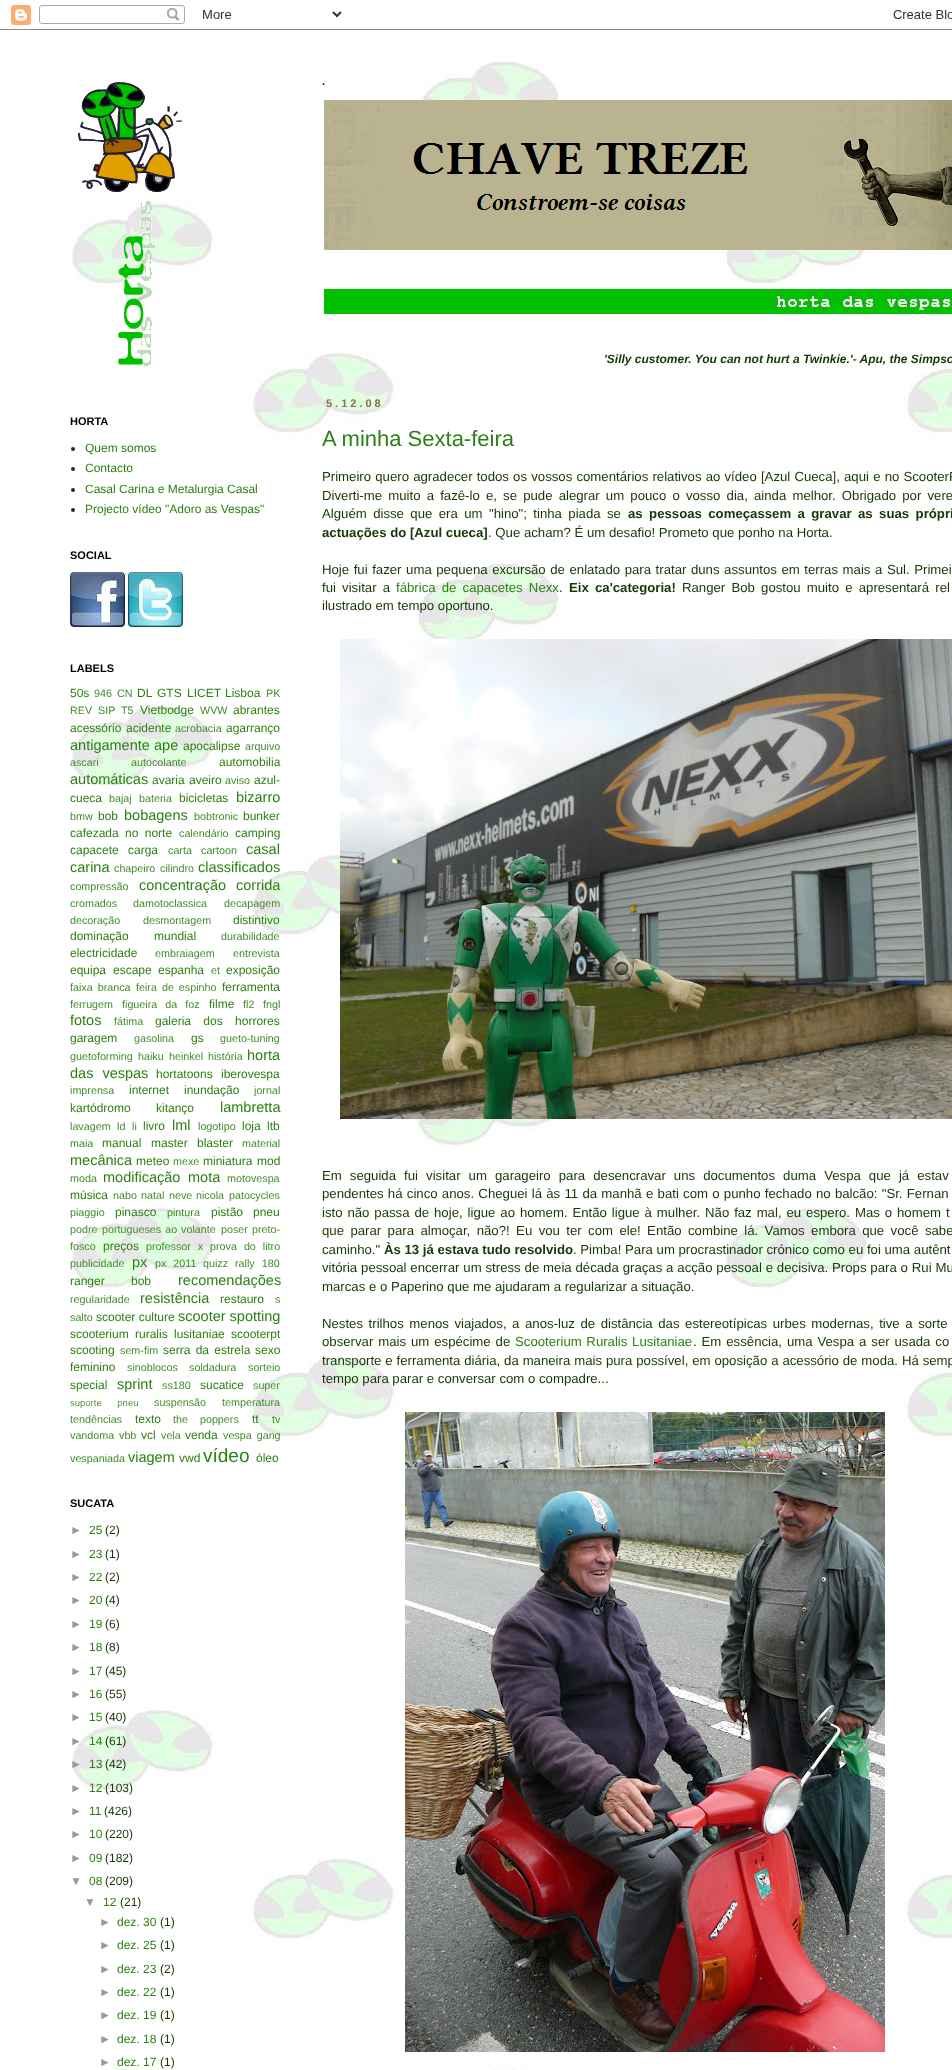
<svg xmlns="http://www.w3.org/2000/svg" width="952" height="2070">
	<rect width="100%" height="100%" fill="#FFFFFF" />
	<image x="72" y="61" width="880" height="2009" href="assets/img1.png" />
	<image x="0" y="5" width="952" height="25" href="assets/img2.png" />
	<image x="78" y="82" width="105" height="284" href="assets/img3.png" />
	<text x="70" y="425" font-family="Liberation Sans" font-size="11" font-weight="700" fill="#000000">HORTA</text>
	<circle cx="73" cy="449" r="2" fill="#173706" />
	<text x="85" y="452" font-family="Liberation Sans" font-size="12" fill="#2C8112">Quem somos</text>
	<circle cx="73" cy="469" r="2" fill="#173706" />
	<text x="85" y="472" font-family="Liberation Sans" font-size="12" fill="#2C8112">Contacto</text>
	<circle cx="73" cy="490" r="2" fill="#173706" />
	<text x="85" y="493" font-family="Liberation Sans" font-size="12" fill="#2C8112">Casal Carina e Metalurgia Casal</text>
	<circle cx="73" cy="510" r="2" fill="#173706" />
	<text x="85" y="513" font-family="Liberation Sans" font-size="12" fill="#2C8112">Projecto vídeo "Adoro as Vespas"</text>
	<text x="70" y="559" font-family="Liberation Sans" font-size="11" font-weight="700" fill="#000000">SOCIAL</text>
	<image x="70" y="572" width="55" height="55" href="assets/img4.png" />
	<image x="128" y="572" width="55" height="55" href="assets/img5.png" />
	<text x="70" y="672" font-family="Liberation Sans" font-size="11" font-weight="700" fill="#000000">LABELS</text>
	<text x="70" y="697" font-family="Liberation Sans" font-size="12" fill="#2C8112">50s</text>
	<g font-family="Liberation Sans" font-size="10.75" fill="#418E2A">
		<text x="94" y="697">946</text>
		<text x="117" y="697">CN</text>
	</g>
	<g font-family="Liberation Sans" font-size="12" fill="#2C8112">
		<text x="137" y="697">DL</text>
		<text x="157" y="697">GTS</text>
		<text x="187" y="697">LICET</text>
		<text x="225" y="697">Lisboa</text>
	</g>
	<g font-family="Liberation Sans" font-size="10.75" fill="#418E2A">
		<text x="266" y="697">PK</text>
		<text x="70" y="714">REV</text>
		<text x="98" y="714">SIP</text>
		<text x="121" y="714">T5</text>
	</g>
	<text x="140" y="714" font-family="Liberation Sans" font-size="12" fill="#2C8112">Vietbodge</text>
	<text x="200" y="714" font-family="Liberation Sans" font-size="10.75" fill="#418E2A">WVW</text>
	<g font-family="Liberation Sans" font-size="12" fill="#2C8112">
		<text x="233" y="714">abrantes</text>
		<text x="70" y="732">acessório</text>
		<text x="126" y="732">acidente</text>
	</g>
	<text x="175" y="732" font-family="Liberation Sans" font-size="10.75" fill="#418E2A">acrobacia</text>
	<text x="226" y="732" font-family="Liberation Sans" font-size="12" fill="#2C8112">agarranço</text>
	<g font-family="Liberation Sans" font-size="14.5" fill="#2C8112">
		<text x="70" y="750">antigamente</text>
		<text x="154" y="750">ape</text>
	</g>
	<text x="183" y="750" font-family="Liberation Sans" font-size="12" fill="#2C8112">apocalipse</text>
	<g font-family="Liberation Sans" font-size="10.75" fill="#418E2A">
		<text x="245" y="750">arquivo</text>
		<text x="70" y="766">ascari</text>
		<text x="131" y="766">autocolante</text>
	</g>
	<text x="219" y="766" font-family="Liberation Sans" font-size="12" fill="#2C8112">automobilia</text>
	<text x="70" y="784" font-family="Liberation Sans" font-size="14.5" fill="#2C8112">automáticas</text>
	<g font-family="Liberation Sans" font-size="12" fill="#2C8112">
		<text x="152" y="784">avaria</text>
		<text x="189" y="784">aveiro</text>
	</g>
	<text x="225" y="784" font-family="Liberation Sans" font-size="10.75" fill="#418E2A">aviso</text>
	<g font-family="Liberation Sans" font-size="12" fill="#2C8112">
		<text x="254" y="784">azul-</text>
		<text x="70" y="802">cueca</text>
	</g>
	<g font-family="Liberation Sans" font-size="10.75" fill="#418E2A">
		<text x="109" y="802">bajaj</text>
		<text x="139" y="802">bateria</text>
	</g>
	<text x="179" y="802" font-family="Liberation Sans" font-size="12" fill="#2C8112">bicicletas</text>
	<text x="236" y="802" font-family="Liberation Sans" font-size="14.5" fill="#2C8112">bizarro</text>
	<text x="70" y="820" font-family="Liberation Sans" font-size="10.75" fill="#418E2A">bmw</text>
	<text x="98" y="820" font-family="Liberation Sans" font-size="12" fill="#2C8112">bob</text>
	<text x="124" y="820" font-family="Liberation Sans" font-size="14.5" fill="#2C8112">bobagens</text>
	<text x="194" y="820" font-family="Liberation Sans" font-size="10.75" fill="#418E2A">bobtronic</text>
	<g font-family="Liberation Sans" font-size="12" fill="#2C8112">
		<text x="243" y="820">bunker</text>
		<text x="70" y="837" word-spacing="3">cafezada no norte</text>
	</g>
	<text x="179" y="837" font-family="Liberation Sans" font-size="10.75" fill="#418E2A">calendário</text>
	<g font-family="Liberation Sans" font-size="12" fill="#2C8112">
		<text x="235" y="837">camping</text>
		<text x="70" y="854">capacete</text>
		<text x="128" y="854">carga</text>
	</g>
	<g font-family="Liberation Sans" font-size="10.75" fill="#418E2A">
		<text x="168" y="854">carta</text>
		<text x="201" y="854">cartoon</text>
	</g>
	<g font-family="Liberation Sans" font-size="14.5" fill="#2C8112">
		<text x="246" y="854">casal</text>
		<text x="70" y="872">carina</text>
	</g>
	<g font-family="Liberation Sans" font-size="10.75" fill="#418E2A">
		<text x="114" y="872">chapeiro</text>
		<text x="160" y="872">cilindro</text>
	</g>
	<text x="198" y="872" font-family="Liberation Sans" font-size="14.5" fill="#2C8112">classificados</text>
	<text x="70" y="890" font-family="Liberation Sans" font-size="10.75" fill="#418E2A">compressão</text>
	<g font-family="Liberation Sans" font-size="14.5" fill="#2C8112">
		<text x="139" y="890">concentração</text>
		<text x="236" y="890">corrida</text>
	</g>
	<g font-family="Liberation Sans" font-size="10.75" fill="#418E2A">
		<text x="70" y="907">cromados</text>
		<text x="133" y="907">damotoclassica</text>
		<text x="224" y="907">decapagem</text>
		<text x="70" y="924">decoração</text>
		<text x="143" y="924">desmontagem</text>
	</g>
	<g font-family="Liberation Sans" font-size="12" fill="#2C8112">
		<text x="233" y="924">distintivo</text>
		<text x="70" y="940" word-spacing="22">dominação mundial</text>
	</g>
	<text x="221" y="940" font-family="Liberation Sans" font-size="10.75" fill="#418E2A">durabilidade</text>
	<text x="70" y="957" font-family="Liberation Sans" font-size="12" fill="#2C8112">electricidade</text>
	<g font-family="Liberation Sans" font-size="10.75" fill="#418E2A">
		<text x="155" y="957">embraiagem</text>
		<text x="233" y="957">entrevista</text>
	</g>
	<g font-family="Liberation Sans" font-size="12" fill="#2C8112">
		<text x="70" y="974">equipa</text>
		<text x="113" y="974">escape</text>
		<text x="158" y="974">espanha</text>
	</g>
	<text x="211" y="974" font-family="Liberation Sans" font-size="10.75" fill="#418E2A">et</text>
	<text x="226" y="974" font-family="Liberation Sans" font-size="12" fill="#2C8112">exposição</text>
	<g font-family="Liberation Sans" font-size="10.75" fill="#418E2A">
		<text x="70" y="991" word-spacing="2">faixa branca</text>
		<text x="136" y="991" word-spacing="2">feira de espinho</text>
	</g>
	<text x="222" y="991" font-family="Liberation Sans" font-size="12" fill="#2C8112">ferramenta</text>
	<g font-family="Liberation Sans" font-size="10.75" fill="#418E2A">
		<text x="70" y="1008">ferrugem</text>
		<text x="122" y="1008" word-spacing="5">figueira da foz</text>
	</g>
	<text x="209" y="1008" font-family="Liberation Sans" font-size="12" fill="#2C8112">filme</text>
	<g font-family="Liberation Sans" font-size="10.75" fill="#418E2A">
		<text x="243" y="1008">fl2</text>
		<text x="263" y="1008">fngl</text>
	</g>
	<text x="70" y="1025" font-family="Liberation Sans" font-size="14.5" fill="#2C8112">fotos</text>
	<text x="114" y="1025" font-family="Liberation Sans" font-size="10.75" fill="#418E2A">fátima</text>
	<g font-family="Liberation Sans" font-size="12" fill="#2C8112">
		<text x="155" y="1025" word-spacing="9">galeria dos horrores</text>
		<text x="70" y="1042">garagem</text>
	</g>
	<text x="134" y="1042" font-family="Liberation Sans" font-size="10.75" fill="#418E2A">gasolina</text>
	<text x="191" y="1042" font-family="Liberation Sans" font-size="12" fill="#2C8112">gs</text>
	<g font-family="Liberation Sans" font-size="10.75" fill="#418E2A">
		<text x="220" y="1042">gueto-tuning</text>
		<text x="70" y="1060">guetoforming</text>
		<text x="138" y="1060">haiku</text>
		<text x="169" y="1060">heinkel</text>
		<text x="208" y="1060">história</text>
	</g>
	<g font-family="Liberation Sans" font-size="14.5" fill="#2C8112">
		<text x="247" y="1060">horta</text>
		<text x="70" y="1078" word-spacing="5">das vespas</text>
	</g>
	<g font-family="Liberation Sans" font-size="12" fill="#2C8112">
		<text x="156" y="1078">hortatoons</text>
		<text x="221" y="1078">iberovespa</text>
	</g>
	<text x="70" y="1094" font-family="Liberation Sans" font-size="10.75" fill="#418E2A">imprensa</text>
	<g font-family="Liberation Sans" font-size="12" fill="#2C8112">
		<text x="129" y="1094">internet</text>
		<text x="184" y="1094">inundação</text>
	</g>
	<text x="254" y="1094" font-family="Liberation Sans" font-size="10.75" fill="#418E2A">jornal</text>
	<g font-family="Liberation Sans" font-size="12" fill="#2C8112">
		<text x="70" y="1112">kartódromo</text>
		<text x="156" y="1112">kitanço</text>
	</g>
	<text x="220" y="1112" font-family="Liberation Sans" font-size="14.5" fill="#2C8112">lambretta</text>
	<g font-family="Liberation Sans" font-size="10.75" fill="#418E2A">
		<text x="70" y="1130">lavagem</text>
		<text x="117" y="1130">ld</text>
		<text x="132" y="1130">li</text>
	</g>
	<text x="143" y="1130" font-family="Liberation Sans" font-size="12" fill="#2C8112">livro</text>
	<text x="172" y="1130" font-family="Liberation Sans" font-size="14.5" fill="#2C8112">lml</text>
	<text x="198" y="1130" font-family="Liberation Sans" font-size="10.75" fill="#418E2A">logotipo</text>
	<g font-family="Liberation Sans" font-size="12" fill="#2C8112">
		<text x="242" y="1130">loja</text>
		<text x="267" y="1130">ltb</text>
	</g>
	<text x="70" y="1147" font-family="Liberation Sans" font-size="10.75" fill="#418E2A">maia</text>
	<g font-family="Liberation Sans" font-size="12" fill="#2C8112">
		<text x="102" y="1147">manual</text>
		<text x="151" y="1147" word-spacing="6">master blaster</text>
	</g>
	<text x="242" y="1147" font-family="Liberation Sans" font-size="10.75" fill="#418E2A">material</text>
	<text x="70" y="1165" font-family="Liberation Sans" font-size="14.5" fill="#2C8112">mecânica</text>
	<text x="136" y="1165" font-family="Liberation Sans" font-size="12" fill="#2C8112">meteo</text>
	<text x="173" y="1165" font-family="Liberation Sans" font-size="10.75" fill="#418E2A">mexe</text>
	<g font-family="Liberation Sans" font-size="12" fill="#2C8112">
		<text x="203" y="1165">miniatura</text>
		<text x="257" y="1165">mod</text>
	</g>
	<text x="70" y="1182" font-family="Liberation Sans" font-size="10.75" fill="#418E2A">moda</text>
	<g font-family="Liberation Sans" font-size="14.5" fill="#2C8112">
		<text x="103" y="1182">modificação</text>
		<text x="188" y="1182">mota</text>
	</g>
	<text x="227" y="1182" font-family="Liberation Sans" font-size="10.75" fill="#418E2A">motovespa</text>
	<text x="70" y="1199" font-family="Liberation Sans" font-size="12" fill="#2C8112">música</text>
	<g font-family="Liberation Sans" font-size="10.75" fill="#418E2A">
		<text x="113" y="1199">nabo</text>
		<text x="141" y="1199">natal</text>
		<text x="169" y="1199">neve</text>
		<text x="196" y="1199">nicola</text>
		<text x="229" y="1199">patocycles</text>
		<text x="70" y="1216">piaggio</text>
	</g>
	<text x="115" y="1216" font-family="Liberation Sans" font-size="12" fill="#2C8112">pinasco</text>
	<text x="167" y="1216" font-family="Liberation Sans" font-size="10.75" fill="#418E2A">pintura</text>
	<g font-family="Liberation Sans" font-size="12" fill="#2C8112">
		<text x="211" y="1216">pistão</text>
		<text x="253" y="1216">pneu</text>
	</g>
	<g font-family="Liberation Sans" font-size="10.75" fill="#418E2A">
		<text x="70" y="1233">podre</text>
		<text x="102" y="1233" word-spacing="1">portugueses ao volante</text>
		<text x="221" y="1233">poser</text>
		<text x="252" y="1233">preto-</text>
		<text x="70" y="1250">fosco</text>
	</g>
	<text x="103" y="1250" font-family="Liberation Sans" font-size="12" fill="#2C8112">preços</text>
	<g font-family="Liberation Sans" font-size="10.75" fill="#418E2A">
		<text x="146" y="1250" word-spacing="4">professor x</text>
		<text x="210" y="1250" word-spacing="4">prova do litro</text>
		<text x="70" y="1267">publicidade</text>
	</g>
	<text x="132" y="1267" font-family="Liberation Sans" font-size="14.5" fill="#2C8112">px</text>
	<g font-family="Liberation Sans" font-size="10.75" fill="#418E2A">
		<text x="155" y="1267" word-spacing="4">px 2011</text>
		<text x="203" y="1267">quizz</text>
		<text x="235" y="1267" word-spacing="4">rally 180</text>
	</g>
	<text x="70" y="1285" word-spacing="23" font-family="Liberation Sans" font-size="12" fill="#2C8112">ranger bob</text>
	<text x="178" y="1285" font-family="Liberation Sans" font-size="14.5" fill="#2C8112">recomendações</text>
	<text x="70" y="1303" font-family="Liberation Sans" font-size="10.75" fill="#418E2A">regularidade</text>
	<text x="140" y="1303" font-family="Liberation Sans" font-size="14.5" fill="#2C8112">resistência</text>
	<text x="220" y="1303" font-family="Liberation Sans" font-size="12" fill="#2C8112">restauro</text>
	<g font-family="Liberation Sans" font-size="10.75" fill="#418E2A">
		<text x="275" y="1303">s</text>
		<text x="70" y="1321">salto</text>
	</g>
	<text x="96" y="1321" font-family="Liberation Sans" font-size="12" fill="#2C8112">scooter culture</text>
	<text x="178" y="1321" font-family="Liberation Sans" font-size="14.5" fill="#2C8112">scooter spotting</text>
	<g font-family="Liberation Sans" font-size="12" fill="#2C8112">
		<text x="70" y="1338" word-spacing="3">scooterium ruralis lusitaniae</text>
		<text x="231" y="1338">scooterpt</text>
		<text x="70" y="1354">scooting</text>
	</g>
	<text x="120" y="1354" font-family="Liberation Sans" font-size="10.75" fill="#418E2A">sem-fim</text>
	<g font-family="Liberation Sans" font-size="12" fill="#2C8112">
		<text x="163" y="1354" word-spacing="2">serra da estrela</text>
		<text x="255" y="1354">sexo</text>
		<text x="70" y="1371">feminino</text>
	</g>
	<g font-family="Liberation Sans" font-size="10.75" fill="#418E2A">
		<text x="127" y="1371">sinoblocos</text>
		<text x="189" y="1371">soldadura</text>
		<text x="248" y="1371">sorteio</text>
	</g>
	<text x="70" y="1389" font-family="Liberation Sans" font-size="12" fill="#2C8112">special</text>
	<text x="117" y="1389" font-family="Liberation Sans" font-size="14.5" fill="#2C8112">sprint</text>
	<text x="162" y="1389" font-family="Liberation Sans" font-size="10.75" fill="#418E2A">ss180</text>
	<text x="200" y="1389" font-family="Liberation Sans" font-size="12" fill="#2C8112">sucatice</text>
	<text x="253" y="1389" font-family="Liberation Sans" font-size="10.75" fill="#418E2A">super</text>
	<text x="70" y="1406" word-spacing="13" font-family="Liberation Sans" font-size="9.5" fill="#569A41">suporte pneu</text>
	<g font-family="Liberation Sans" font-size="10.75" fill="#418E2A">
		<text x="154" y="1406">suspensão</text>
		<text x="222" y="1406">temperatura</text>
		<text x="70" y="1423">tendências</text>
	</g>
	<text x="135" y="1423" font-family="Liberation Sans" font-size="12" fill="#2C8112">texto</text>
	<text x="173" y="1423" word-spacing="9" font-family="Liberation Sans" font-size="10.75" fill="#418E2A">the poppers</text>
	<text x="252" y="1423" font-family="Liberation Sans" font-size="12" fill="#2C8112">tt</text>
	<g font-family="Liberation Sans" font-size="10.75" fill="#418E2A">
		<text x="272" y="1423">tv</text>
		<text x="70" y="1439">vandoma</text>
		<text x="119" y="1439">vbb</text>
	</g>
	<text x="141" y="1439" font-family="Liberation Sans" font-size="12" fill="#2C8112">vcl</text>
	<text x="161" y="1439" font-family="Liberation Sans" font-size="10.75" fill="#418E2A">vela</text>
	<text x="185" y="1439" font-family="Liberation Sans" font-size="12" fill="#2C8112">venda</text>
	<g font-family="Liberation Sans" font-size="10.75" fill="#418E2A">
		<text x="223" y="1439" word-spacing="2">vespa gang</text>
		<text x="70" y="1462">vespaniada</text>
	</g>
	<text x="128" y="1462" font-family="Liberation Sans" font-size="14.5" fill="#2C8112">viagem</text>
	<text x="179" y="1462" font-family="Liberation Sans" font-size="12" fill="#2C8112">vwd</text>
	<text x="203" y="1462" font-family="Liberation Sans" font-size="19" fill="#2C8112">vídeo</text>
	<text x="256" y="1462" font-family="Liberation Sans" font-size="12" fill="#2C8112">óleo</text>
	<text x="70" y="1507" font-family="Liberation Sans" font-size="11" font-weight="700" fill="#000000">SUCATA</text>
	<text x="70" y="1534" font-family="Liberation Sans" font-size="12" fill="#999999">►</text>
	<text x="89" y="1534" font-family="Liberation Sans" font-size="12" fill="#2C8112">25</text>
	<text x="105" y="1534" font-family="Liberation Sans" font-size="12" fill="#173706">(2)</text>
	<text x="70" y="1558" font-family="Liberation Sans" font-size="12" fill="#999999">►</text>
	<text x="89" y="1558" font-family="Liberation Sans" font-size="12" fill="#2C8112">23</text>
	<text x="105" y="1558" font-family="Liberation Sans" font-size="12" fill="#173706">(1)</text>
	<text x="70" y="1581" font-family="Liberation Sans" font-size="12" fill="#999999">►</text>
	<text x="89" y="1581" font-family="Liberation Sans" font-size="12" fill="#2C8112">22</text>
	<text x="105" y="1581" font-family="Liberation Sans" font-size="12" fill="#173706">(2)</text>
	<text x="70" y="1604" font-family="Liberation Sans" font-size="12" fill="#999999">►</text>
	<text x="89" y="1604" font-family="Liberation Sans" font-size="12" fill="#2C8112">20</text>
	<text x="105" y="1604" font-family="Liberation Sans" font-size="12" fill="#173706">(4)</text>
	<text x="70" y="1628" font-family="Liberation Sans" font-size="12" fill="#999999">►</text>
	<text x="89" y="1628" font-family="Liberation Sans" font-size="12" fill="#2C8112">19</text>
	<text x="105" y="1628" font-family="Liberation Sans" font-size="12" fill="#173706">(6)</text>
	<text x="70" y="1651" font-family="Liberation Sans" font-size="12" fill="#999999">►</text>
	<text x="89" y="1651" font-family="Liberation Sans" font-size="12" fill="#2C8112">18</text>
	<text x="105" y="1651" font-family="Liberation Sans" font-size="12" fill="#173706">(8)</text>
	<text x="70" y="1675" font-family="Liberation Sans" font-size="12" fill="#999999">►</text>
	<text x="89" y="1675" font-family="Liberation Sans" font-size="12" fill="#2C8112">17</text>
	<text x="105" y="1675" font-family="Liberation Sans" font-size="12" fill="#173706">(45)</text>
	<text x="70" y="1698" font-family="Liberation Sans" font-size="12" fill="#999999">►</text>
	<text x="89" y="1698" font-family="Liberation Sans" font-size="12" fill="#2C8112">16</text>
	<text x="105" y="1698" font-family="Liberation Sans" font-size="12" fill="#173706">(55)</text>
	<text x="70" y="1721" font-family="Liberation Sans" font-size="12" fill="#999999">►</text>
	<text x="89" y="1721" font-family="Liberation Sans" font-size="12" fill="#2C8112">15</text>
	<text x="105" y="1721" font-family="Liberation Sans" font-size="12" fill="#173706">(40)</text>
	<text x="70" y="1745" font-family="Liberation Sans" font-size="12" fill="#999999">►</text>
	<text x="89" y="1745" font-family="Liberation Sans" font-size="12" fill="#2C8112">14</text>
	<text x="105" y="1745" font-family="Liberation Sans" font-size="12" fill="#173706">(61)</text>
	<text x="70" y="1768" font-family="Liberation Sans" font-size="12" fill="#999999">►</text>
	<text x="89" y="1768" font-family="Liberation Sans" font-size="12" fill="#2C8112">13</text>
	<text x="105" y="1768" font-family="Liberation Sans" font-size="12" fill="#173706">(42)</text>
	<text x="70" y="1792" font-family="Liberation Sans" font-size="12" fill="#999999">►</text>
	<text x="89" y="1792" font-family="Liberation Sans" font-size="12" fill="#2C8112">12</text>
	<text x="105" y="1792" font-family="Liberation Sans" font-size="12" fill="#173706">(103)</text>
	<text x="70" y="1815" font-family="Liberation Sans" font-size="12" fill="#999999">►</text>
	<text x="89" y="1815" font-family="Liberation Sans" font-size="12" fill="#2C8112">11</text>
	<text x="104" y="1815" font-family="Liberation Sans" font-size="12" fill="#173706">(426)</text>
	<text x="70" y="1838" font-family="Liberation Sans" font-size="12" fill="#999999">►</text>
	<text x="89" y="1838" font-family="Liberation Sans" font-size="12" fill="#2C8112">10</text>
	<text x="105" y="1838" font-family="Liberation Sans" font-size="12" fill="#173706">(220)</text>
	<text x="70" y="1862" font-family="Liberation Sans" font-size="12" fill="#999999">►</text>
	<text x="89" y="1862" font-family="Liberation Sans" font-size="12" fill="#2C8112">09</text>
	<text x="105" y="1862" font-family="Liberation Sans" font-size="12" fill="#173706">(182)</text>
	<text x="70" y="1885" font-family="Liberation Sans" font-size="12" fill="#999999">▼</text>
	<text x="89" y="1885" font-family="Liberation Sans" font-size="12" fill="#2C8112">08</text>
	<text x="105" y="1885" font-family="Liberation Sans" font-size="12" fill="#173706">(209)</text>
	<text x="84" y="1906" font-family="Liberation Sans" font-size="12" fill="#999999">▼</text>
	<text x="103" y="1906" font-family="Liberation Sans" font-size="12" fill="#2C8112">12</text>
	<text x="120" y="1906" font-family="Liberation Sans" font-size="12" fill="#173706">(21)</text>
	<text x="99" y="1926" font-family="Liberation Sans" font-size="12" fill="#999999">►</text>
	<text x="117" y="1926" font-family="Liberation Sans" font-size="12" fill="#2C8112">dez. 30</text>
	<text x="160" y="1926" font-family="Liberation Sans" font-size="12" fill="#173706">(1)</text>
	<text x="99" y="1949" font-family="Liberation Sans" font-size="12" fill="#999999">►</text>
	<text x="117" y="1949" font-family="Liberation Sans" font-size="12" fill="#2C8112">dez. 25</text>
	<text x="160" y="1949" font-family="Liberation Sans" font-size="12" fill="#173706">(1)</text>
	<text x="99" y="1973" font-family="Liberation Sans" font-size="12" fill="#999999">►</text>
	<text x="117" y="1973" font-family="Liberation Sans" font-size="12" fill="#2C8112">dez. 23</text>
	<text x="160" y="1973" font-family="Liberation Sans" font-size="12" fill="#173706">(2)</text>
	<text x="99" y="1996" font-family="Liberation Sans" font-size="12" fill="#999999">►</text>
	<text x="117" y="1996" font-family="Liberation Sans" font-size="12" fill="#2C8112">dez. 22</text>
	<text x="160" y="1996" font-family="Liberation Sans" font-size="12" fill="#173706">(1)</text>
	<text x="99" y="2019" font-family="Liberation Sans" font-size="12" fill="#999999">►</text>
	<text x="117" y="2019" font-family="Liberation Sans" font-size="12" fill="#2C8112">dez. 19</text>
	<text x="160" y="2019" font-family="Liberation Sans" font-size="12" fill="#173706">(1)</text>
	<text x="99" y="2043" font-family="Liberation Sans" font-size="12" fill="#999999">►</text>
	<text x="117" y="2043" font-family="Liberation Sans" font-size="12" fill="#2C8112">dez. 18</text>
	<text x="160" y="2043" font-family="Liberation Sans" font-size="12" fill="#173706">(1)</text>
	<text x="99" y="2066" font-family="Liberation Sans" font-size="12" fill="#999999">►</text>
	<text x="117" y="2066" font-family="Liberation Sans" font-size="12" fill="#2C8112">dez. 17</text>
	<text x="160" y="2066" font-family="Liberation Sans" font-size="12" fill="#173706">(1)</text>
	<text x="322" y="85" font-family="Liberation Sans" font-size="11" font-weight="700" fill="#000000">.</text>
	<image x="324" y="100" width="628" height="150" href="assets/img6.png" />
	<image x="324" y="289" width="628" height="25" href="assets/img7.png" />
	<text x="604" y="363" font-family="Liberation Sans" font-size="12" font-weight="700" font-style="italic" fill="#173706">'Silly customer. You can not hurt a Twinkie.'- Apu, the Simpso</text>
	<text x="326" y="407" font-family="Liberation Sans" font-size="11" font-weight="700" letter-spacing="3" fill="#817349">5.12.08</text>
	<text x="322" y="446" font-family="Liberation Sans" font-size="22" fill="#2C8112">A minha Sexta-feira</text>
	<g font-family="Liberation Sans" font-size="13.2" fill="#173706">
		<text x="322" y="481" word-spacing="0.5">Primeiro quero agradecer todos os vossos comentários relativos ao vídeo [Azul Cueca], aqui e no ScooterP</text>
		<text x="322" y="500" word-spacing="2.5">Diverti-me muito a fazê-lo e, se pude alegrar um pouco o vosso dia, ainda melhor. Obrigado por vere</text>
		<text x="322" y="518" word-spacing="2.75">Alguém disse que era um "hino"; tinha piada se</text>
	</g>
	<g font-family="Liberation Sans" font-size="13.2" font-weight="700" fill="#173706">
		<text x="628" y="518" word-spacing="2.75">as pessoas começassem a gravar as suas própri</text>
		<text x="322" y="537">actuações do [Azul cueca]</text>
	</g>
	<g font-family="Liberation Sans" font-size="13.2" fill="#173706">
		<text x="488" y="537">. Que acham? É um desafio! Prometo que ponho na Horta.</text>
		<text x="322" y="574" word-spacing="0.9">Hoje fui fazer uma pequena excursão de enlatado para tratar duns assuntos em terras mais a Sul. Primei</text>
		<text x="322" y="592" word-spacing="2.5">fui visitar a</text>
	</g>
	<text x="396" y="592" word-spacing="2.5" font-family="Liberation Sans" font-size="13.2" fill="#2C8112">fábrica de capacetes Nexx</text>
	<text x="559" y="592" font-family="Liberation Sans" font-size="13.2" fill="#173706">.</text>
	<text x="569" y="592" word-spacing="2.5" font-family="Liberation Sans" font-size="13.2" font-weight="700" fill="#173706">Eix ca'categoria!</text>
	<g font-family="Liberation Sans" font-size="13.2" fill="#173706">
		<text x="682" y="592" word-spacing="2.5">Ranger Bob gostou muito e apresentará rel</text>
		<text x="322" y="610">ilustrado em tempo oportuno.</text>
	</g>
	<image x="340" y="639" width="612" height="480" href="assets/img8.png" />
	<g font-family="Liberation Sans" font-size="13.2" fill="#173706">
		<text x="322" y="1180" word-spacing="4.4">Em seguida fui visitar um garageiro para desencravar uns documentos duma Vespa que já estav</text>
		<text x="322" y="1198" word-spacing="0.6">pendentes há cinco anos. Cheguei lá às 11 da manhã e bati com o punho fechado no balcão: "Sr. Fernan</text>
		<text x="322" y="1217" word-spacing="1.25">isto não passa de hoje, ligue ao homem. Então ligue à mulher. Não faz mal, eu espero. Mas o homem t</text>
		<text x="322" y="1235" word-spacing="2.75">que parar para almoçar, não?! Eu vou ter com ele! Então combine lá. Vamos embora que você sabe</text>
		<text x="322" y="1254">caminho."</text>
	</g>
	<text x="384" y="1254" font-family="Liberation Sans" font-size="13.2" font-weight="700" fill="#173706">Às 13 já estava tudo resolvido</text>
	<g font-family="Liberation Sans" font-size="13.2" fill="#173706">
		<text x="573" y="1254">. Pimba! Para um procrastinador crónico como eu foi uma autênt</text>
		<text x="322" y="1272" word-spacing="0.2">vitória pessoal encerrar um stress de meia década graças a acção pessoal e decisiva. Props para o Rui Mu</text>
		<text x="322" y="1291">marcas e o Paperino que me ajudaram a regularizar a situação.</text>
		<text x="322" y="1328" word-spacing="1.9">Nestes trilhos menos viajados, a anos-luz de distância das estereotípicas urbes modernas, tive a sorte</text>
		<text x="322" y="1346" word-spacing="1.25">observar mais um espécime de</text>
	</g>
	<text x="515" y="1346" word-spacing="1" font-family="Liberation Sans" font-size="13.2" fill="#2C8112">Scooterium Ruralis Lusitaniae</text>
	<g font-family="Liberation Sans" font-size="13.2" fill="#173706">
		<text x="693" y="1346" word-spacing="1.25">. Em essência, uma Vespa a ser usada co</text>
		<text x="322" y="1365" word-spacing="0.25">transporte e ferramenta diária, da maneira mais pura possível, em oposição a acessório de moda. Há semp</text>
		<text x="322" y="1383">tempo para parar e conversar com o compadre...</text>
	</g>
	<image x="405" y="1412" width="480" height="640" href="assets/img9.png" />
</svg>
